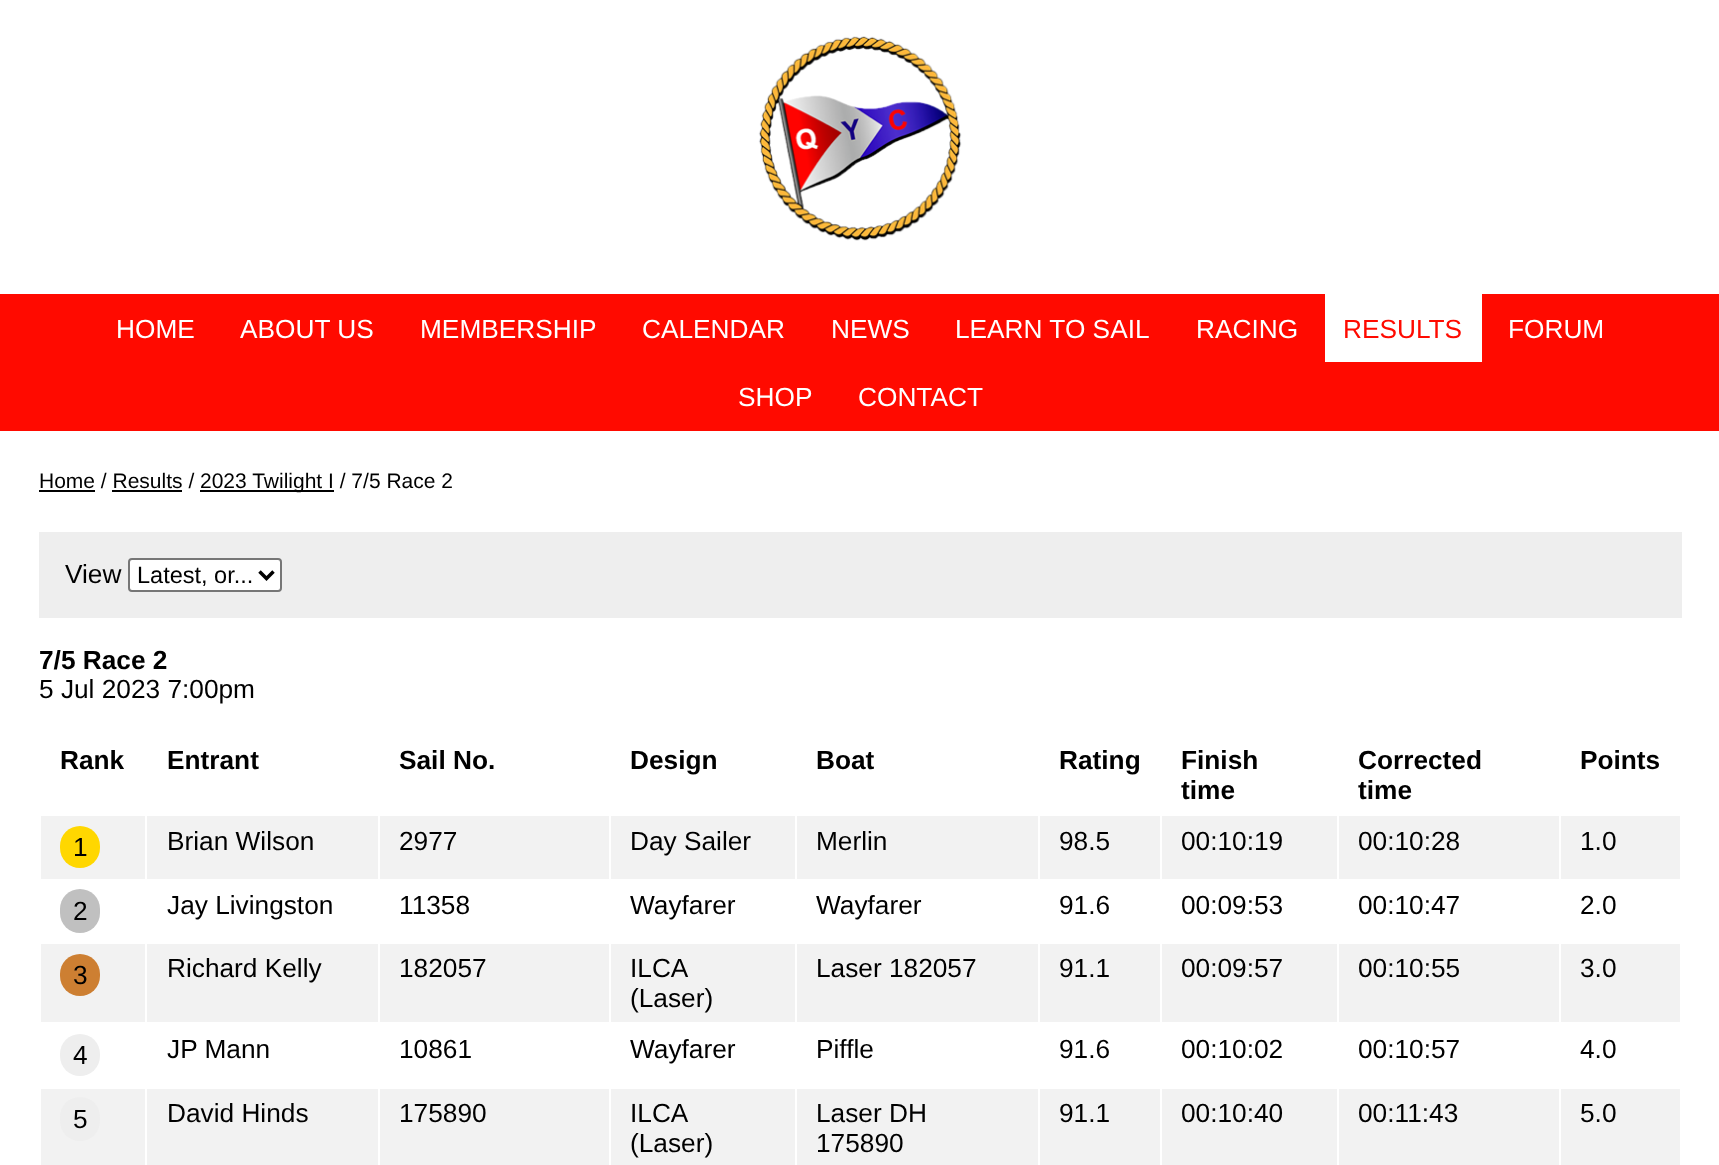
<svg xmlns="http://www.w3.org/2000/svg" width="1719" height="1165">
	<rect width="100%" height="100%" fill="#FFFFFF" />
	<image x="758" y="36" width="204" height="205" href="assets/img1.png" />
	<rect x="0" y="294" width="1719" height="137" fill="#FF0A00" />
	<g font-family="Liberation Sans" font-size="26.25" fill="#FFFFFF">
		<text x="116" y="338">HOME</text>
		<text x="240" y="338">ABOUT US</text>
		<text x="420" y="338">MEMBERSHIP</text>
		<text x="642" y="338">CALENDAR</text>
		<text x="831" y="338">NEWS</text>
		<text x="955" y="338">LEARN TO SAIL</text>
		<text x="1196" y="338">RACING</text>
	</g>
	<rect x="1325" y="294" width="157" height="68" fill="#FFFFFF" />
	<text x="1343" y="338" font-family="Liberation Sans" font-size="26.25" fill="#FF0A00">RESULTS</text>
	<g font-family="Liberation Sans" font-size="26.25" fill="#FFFFFF">
		<text x="1508" y="338">FORUM</text>
		<text x="738" y="406">SHOP</text>
		<text x="858" y="406">CONTACT</text>
	</g>
	<text x="39" y="488" font-family="Liberation Sans" font-size="21" fill="#000000">Home / Results /</text>
	<rect x="39" y="490" width="56" height="2" fill="#000000" />
	<rect x="200" y="490" width="134" height="2" fill="#000000" />
	<text x="200" y="488" font-family="Liberation Sans" font-size="21" fill="#000000">2023 Twilight I / 7/5 Race 2</text>
	<rect x="112" y="490" width="70" height="2" fill="#000000" />
	<rect x="39" y="532" width="1643" height="86" fill="#EEEEEE" />
	<text x="65" y="583" font-family="Liberation Sans" font-size="26.25" fill="#000000">View</text>
	<rect x="129" y="559" width="152" height="32" rx="3" fill="#FFFFFF" stroke="#767676" stroke-width="2" />
	<path d="M259.5 571.5L266.5 578.5L273.5 571.5" fill="none" stroke="#000000" stroke-width="3.5" />
	<text x="137" y="583" font-family="Liberation Sans" font-size="23.5" fill="#000000">Latest, or...</text>
	<text x="39" y="669" font-family="Liberation Sans" font-size="26.25" font-weight="700" fill="#000000">7/5 Race 2</text>
	<text x="39" y="698" font-family="Liberation Sans" font-size="26.25" fill="#000000">5 Jul 2023 7:00pm</text>
	<g font-family="Liberation Sans" font-size="26.25" font-weight="700" fill="#000000">
		<text x="60" y="769">Rank</text>
		<text x="167" y="769">Entrant</text>
		<text x="399" y="769">Sail No.</text>
		<text x="630" y="769">Design</text>
		<text x="816" y="769">Boat</text>
		<text x="1059" y="769">Rating</text>
		<text x="1181" y="769">Finish</text>
		<text x="1181" y="799">time</text>
		<text x="1358" y="769">Corrected</text>
		<text x="1358" y="799">time</text>
		<text x="1580" y="769">Points</text>
	</g>
	<rect x="41" y="816" width="104" height="63" fill="#F2F2F2" />
	<rect x="60" y="826" width="40" height="42" rx="20" fill="#FFD700" />
	<text x="73" y="856" font-family="Liberation Sans" font-size="26.25" fill="#000000">1</text>
	<rect x="147" y="816" width="231" height="63" fill="#F2F2F2" />
	<text x="167" y="850" font-family="Liberation Sans" font-size="26.25" fill="#000000">Brian Wilson</text>
	<rect x="380" y="816" width="229" height="63" fill="#F2F2F2" />
	<text x="399" y="850" font-family="Liberation Sans" font-size="26.25" fill="#000000">2977</text>
	<rect x="611" y="816" width="184" height="63" fill="#F2F2F2" />
	<text x="630" y="850" font-family="Liberation Sans" font-size="26.25" fill="#000000">Day Sailer</text>
	<rect x="797" y="816" width="241" height="63" fill="#F2F2F2" />
	<text x="816" y="850" font-family="Liberation Sans" font-size="26.25" fill="#000000">Merlin</text>
	<rect x="1040" y="816" width="120" height="63" fill="#F2F2F2" />
	<text x="1059" y="850" font-family="Liberation Sans" font-size="26.25" fill="#000000">98.5</text>
	<rect x="1162" y="816" width="175" height="63" fill="#F2F2F2" />
	<text x="1181" y="850" font-family="Liberation Sans" font-size="26.25" fill="#000000">00:10:19</text>
	<rect x="1339" y="816" width="220" height="63" fill="#F2F2F2" />
	<text x="1358" y="850" font-family="Liberation Sans" font-size="26.25" fill="#000000">00:10:28</text>
	<rect x="1561" y="816" width="119" height="63" fill="#F2F2F2" />
	<text x="1580" y="850" font-family="Liberation Sans" font-size="26.25" fill="#000000">1.0</text>
	<rect x="60" y="889" width="40" height="44" rx="20" fill="#C0C0C0" />
	<g font-family="Liberation Sans" font-size="26.25" fill="#000000">
		<text x="73" y="920">2</text>
		<text x="167" y="914">Jay Livingston</text>
		<text x="399" y="914">11358</text>
		<text x="630" y="914">Wayfarer</text>
		<text x="816" y="914">Wayfarer</text>
		<text x="1059" y="914">91.6</text>
		<text x="1181" y="914">00:09:53</text>
		<text x="1358" y="914">00:10:47</text>
		<text x="1580" y="914">2.0</text>
	</g>
	<rect x="41" y="944" width="104" height="78" fill="#F2F2F2" />
	<rect x="60" y="954" width="40" height="42" rx="20" fill="#CD7F32" />
	<text x="73" y="984" font-family="Liberation Sans" font-size="26.25" fill="#000000">3</text>
	<rect x="147" y="944" width="231" height="78" fill="#F2F2F2" />
	<text x="167" y="977" font-family="Liberation Sans" font-size="26.25" fill="#000000">Richard Kelly</text>
	<rect x="380" y="944" width="229" height="78" fill="#F2F2F2" />
	<text x="399" y="977" font-family="Liberation Sans" font-size="26.25" fill="#000000">182057</text>
	<rect x="611" y="944" width="184" height="78" fill="#F2F2F2" />
	<g font-family="Liberation Sans" font-size="26.25" fill="#000000">
		<text x="630" y="977">ILCA</text>
		<text x="630" y="1007">(Laser)</text>
	</g>
	<rect x="797" y="944" width="241" height="78" fill="#F2F2F2" />
	<text x="816" y="977" font-family="Liberation Sans" font-size="26.25" fill="#000000">Laser 182057</text>
	<rect x="1040" y="944" width="120" height="78" fill="#F2F2F2" />
	<text x="1059" y="977" font-family="Liberation Sans" font-size="26.25" fill="#000000">91.1</text>
	<rect x="1162" y="944" width="175" height="78" fill="#F2F2F2" />
	<text x="1181" y="977" font-family="Liberation Sans" font-size="26.25" fill="#000000">00:09:57</text>
	<rect x="1339" y="944" width="220" height="78" fill="#F2F2F2" />
	<text x="1358" y="977" font-family="Liberation Sans" font-size="26.25" fill="#000000">00:10:55</text>
	<rect x="1561" y="944" width="119" height="78" fill="#F2F2F2" />
	<text x="1580" y="977" font-family="Liberation Sans" font-size="26.25" fill="#000000">3.0</text>
	<rect x="60" y="1034" width="40" height="42" rx="20" fill="#EEEEEE" />
	<g font-family="Liberation Sans" font-size="26.25" fill="#000000">
		<text x="73" y="1064">4</text>
		<text x="167" y="1058">JP Mann</text>
		<text x="399" y="1058">10861</text>
		<text x="630" y="1058">Wayfarer</text>
		<text x="816" y="1058">Piffle</text>
		<text x="1059" y="1058">91.6</text>
		<text x="1181" y="1058">00:10:02</text>
		<text x="1358" y="1058">00:10:57</text>
		<text x="1580" y="1058">4.0</text>
	</g>
	<rect x="41" y="1089" width="104" height="76" fill="#F2F2F2" />
	<rect x="60" y="1097" width="40" height="44" rx="20" fill="#EEEEEE" />
	<text x="73" y="1128" font-family="Liberation Sans" font-size="26.25" fill="#000000">5</text>
	<rect x="147" y="1089" width="231" height="76" fill="#F2F2F2" />
	<text x="167" y="1122" font-family="Liberation Sans" font-size="26.25" fill="#000000">David Hinds</text>
	<rect x="380" y="1089" width="229" height="76" fill="#F2F2F2" />
	<text x="399" y="1122" font-family="Liberation Sans" font-size="26.25" fill="#000000">175890</text>
	<rect x="611" y="1089" width="184" height="76" fill="#F2F2F2" />
	<g font-family="Liberation Sans" font-size="26.25" fill="#000000">
		<text x="630" y="1122">ILCA</text>
		<text x="630" y="1152">(Laser)</text>
	</g>
	<rect x="797" y="1089" width="241" height="76" fill="#F2F2F2" />
	<g font-family="Liberation Sans" font-size="26.25" fill="#000000">
		<text x="816" y="1122">Laser DH</text>
		<text x="816" y="1152">175890</text>
	</g>
	<rect x="1040" y="1089" width="120" height="76" fill="#F2F2F2" />
	<text x="1059" y="1122" font-family="Liberation Sans" font-size="26.25" fill="#000000">91.1</text>
	<rect x="1162" y="1089" width="175" height="76" fill="#F2F2F2" />
	<text x="1181" y="1122" font-family="Liberation Sans" font-size="26.25" fill="#000000">00:10:40</text>
	<rect x="1339" y="1089" width="220" height="76" fill="#F2F2F2" />
	<text x="1358" y="1122" font-family="Liberation Sans" font-size="26.25" fill="#000000">00:11:43</text>
	<rect x="1561" y="1089" width="119" height="76" fill="#F2F2F2" />
	<text x="1580" y="1122" font-family="Liberation Sans" font-size="26.25" fill="#000000">5.0</text>
</svg>
